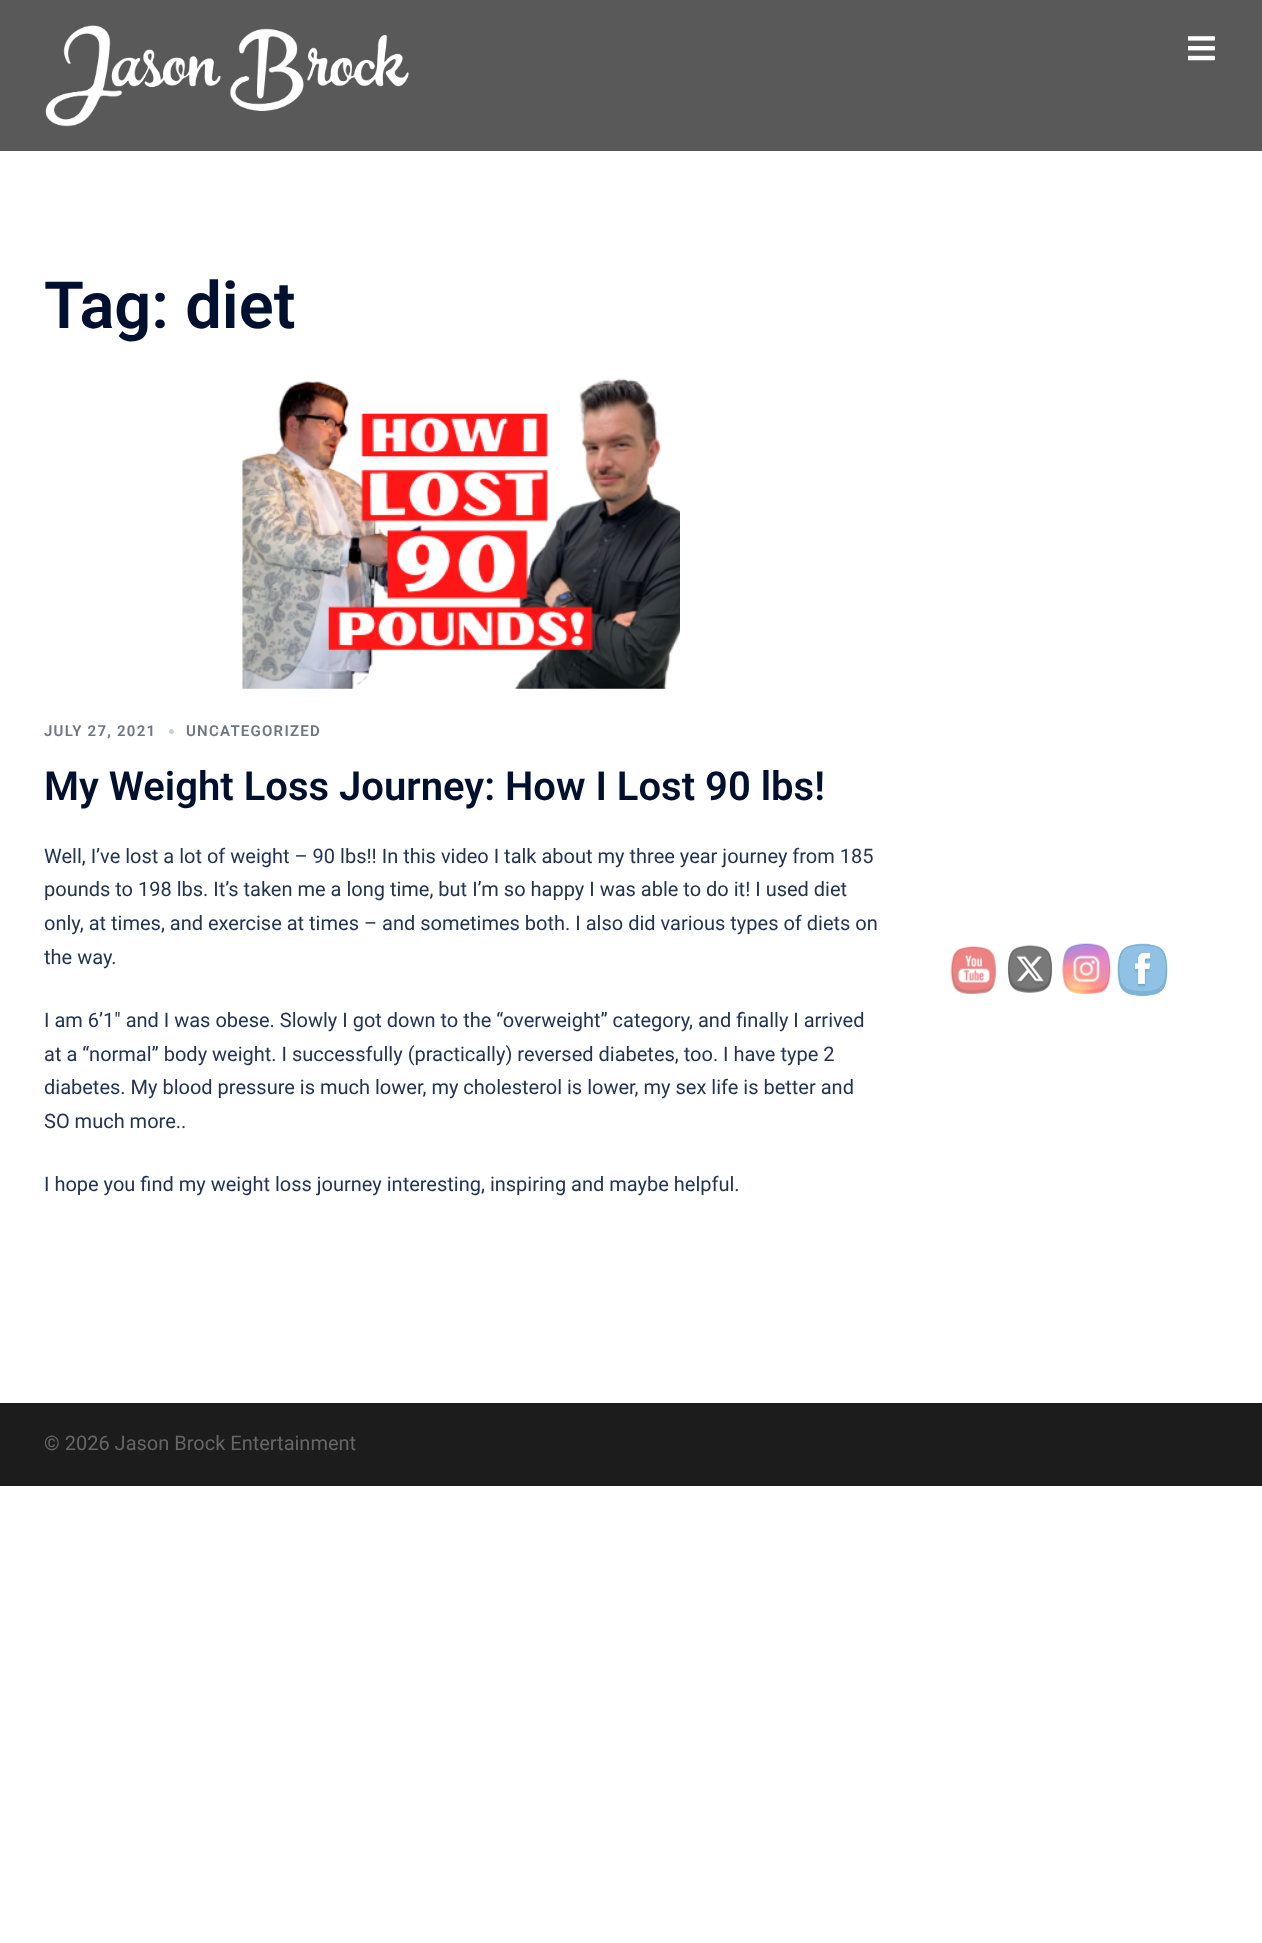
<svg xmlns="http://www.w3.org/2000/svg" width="1262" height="1943">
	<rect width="100%" height="100%" fill="#FFFFFF" />
	<rect x="0" y="0" width="1262" height="151" fill="#595959" />
	<image x="45" y="25" width="364" height="102" href="assets/img1.png" />
	<image x="1188" y="36" width="27" height="25" href="assets/img2.png" />
	<text x="44" y="328" font-family="Roboto" font-size="65" font-weight="600" fill="#00102E">Tag: diet</text>
	<image x="242" y="378" width="438" height="311" href="assets/img3.png" />
	<text x="44" y="736" font-family="Roboto" font-size="15" font-weight="600" letter-spacing="1.25" fill="#6D7685">JULY 27, 2021</text>
	<circle cx="171.5" cy="731.5" r="2.5" fill="#CCCFD5" />
	<text x="186" y="736" font-family="Roboto" font-size="15" font-weight="600" letter-spacing="1.25" fill="#6D7685">UNCATEGORIZED</text>
	<text x="44" y="800" font-family="Roboto" font-size="40" font-weight="600" fill="#00102E">My Weight Loss Journey: How I Lost 90 lbs!</text>
	<g font-family="Roboto" font-size="20" fill="#233452">
		<text x="44" y="863">Well, I’ve lost a lot of weight – 90 lbs!! In this video I talk about my three year journey from 185</text>
		<text x="44" y="896">pounds to 198 lbs. It’s taken me a long time, but I’m so happy I was able to do it! I used diet</text>
		<text x="44" y="930">only, at times, and exercise at times – and sometimes both. I also did various types of diets on</text>
		<text x="44" y="964">the way.</text>
		<text x="44" y="1027">I am 6’1″ and I was obese. Slowly I got down to the “overweight” category, and finally I arrived</text>
		<text x="44" y="1061">at a “normal” body weight. I successfully (practically) reversed diabetes, too. I have type 2</text>
		<text x="44" y="1094">diabetes. My blood pressure is much lower, my cholesterol is lower, my sex life is better and</text>
		<text x="44" y="1128">SO much more..</text>
		<text x="44" y="1191">I hope you find my weight loss journey interesting, inspiring and maybe helpful.</text>
	</g>
	<rect x="0" y="1403" width="1262" height="83" fill="#1C1C1C" />
	<text x="44" y="1450" font-family="Roboto" font-size="20" fill="#666666">© 2026 Jason Brock Entertainment</text>
	<image x="950" y="946" width="47" height="48" href="assets/img4.png" />
	<image x="1007" y="944" width="46" height="49" href="assets/img5.png" />
	<image x="1062" y="943" width="49" height="51" href="assets/img6.png" />
	<image x="1117" y="943" width="51" height="54" href="assets/img7.png" />
</svg>
